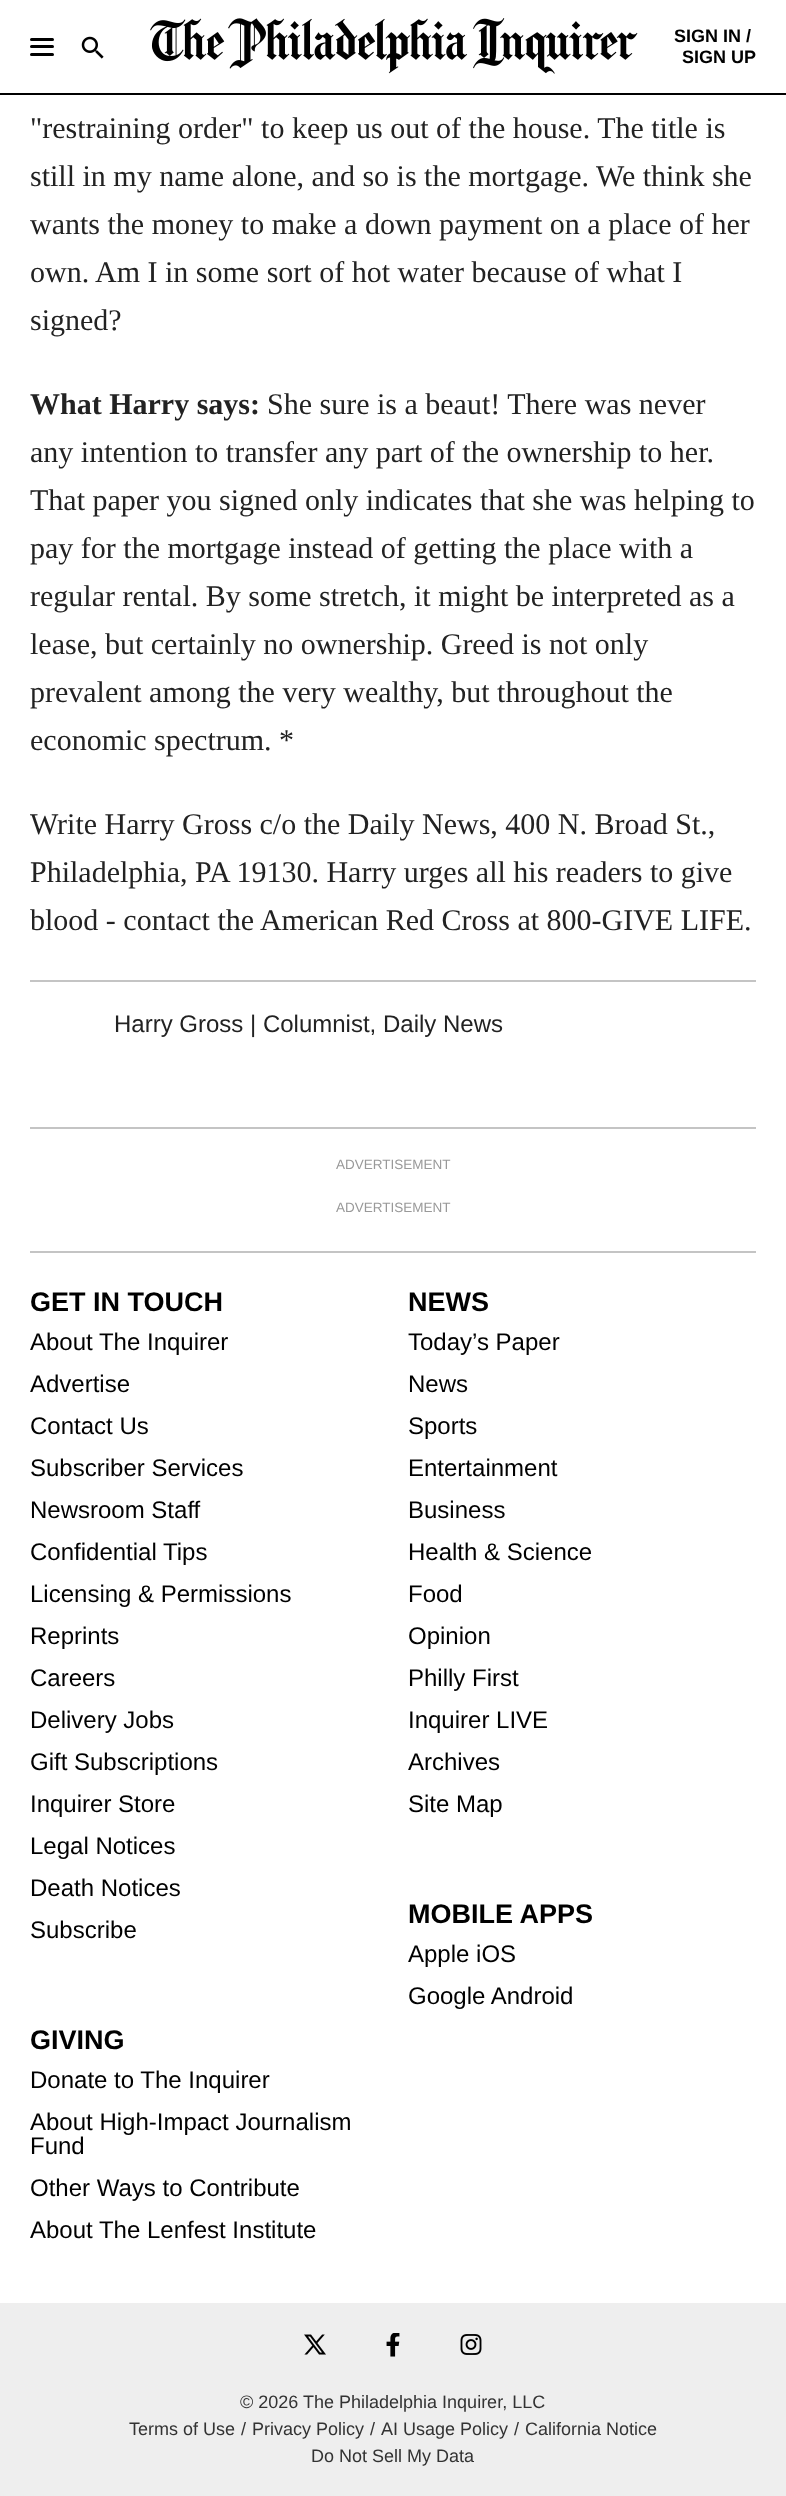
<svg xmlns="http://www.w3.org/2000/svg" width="786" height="2496">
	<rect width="100%" height="100%" fill="#FFFFFF" />
	<rect x="0" y="93" width="786" height="2" fill="#000000" />
	<rect x="30" y="38" width="24" height="3" rx="1.5" fill="#000000" />
	<rect x="30" y="45" width="24" height="3" rx="1.5" fill="#000000" />
	<rect x="30" y="53" width="24" height="3" rx="1.5" fill="#000000" />
	<image x="81" y="36" width="23" height="23" href="assets/img1.png" />
	<image x="150" y="18" width="488" height="56" href="assets/img2.png" />
	<g font-family="Liberation Sans" font-size="18" font-weight="700" fill="#000000">
		<text x="674" y="42">SIGN IN /</text>
		<text x="682" y="63">SIGN UP</text>
	</g>
	<g font-family="Liberation Serif" font-size="30" fill="#222222">
		<text x="30" y="138">"restraining order" to keep us out of the house. The title is</text>
		<text x="30" y="186">still in my name alone, and so is the mortgage. We think she</text>
		<text x="30" y="234">wants the money to make a down payment on a place of her</text>
		<text x="30" y="282">own. Am I in some sort of hot water because of what I</text>
		<text x="30" y="330">signed?</text>
	</g>
	<text x="30" y="414" font-family="Liberation Serif" font-size="30" font-weight="700" fill="#222222">What Harry says:</text>
	<g font-family="Liberation Serif" font-size="30" fill="#222222">
		<text x="267" y="414">She sure is a beaut! There was never</text>
		<text x="30" y="462">any intention to transfer any part of the ownership to her.</text>
		<text x="30" y="510">That paper you signed only indicates that she was helping to</text>
		<text x="30" y="558">pay for the mortgage instead of getting the place with a</text>
		<text x="30" y="606">regular rental. By some stretch, it might be interpreted as a</text>
		<text x="30" y="654">lease, but certainly no ownership. Greed is not only</text>
		<text x="30" y="702">prevalent among the very wealthy, but throughout the</text>
		<text x="30" y="750">economic spectrum. *</text>
		<text x="30" y="834">Write Harry Gross c/o the Daily News, 400 N. Broad St.,</text>
		<text x="30" y="882">Philadelphia, PA 19130. Harry urges all his readers to give</text>
		<text x="30" y="930">blood - contact the American Red Cross at 800-GIVE LIFE.</text>
	</g>
	<rect x="30" y="980" width="726" height="2" fill="#C4C4C4" />
	<rect x="30" y="1127" width="726" height="2" fill="#C4C4C4" />
	<text x="114" y="1032" font-family="Liberation Sans" font-size="24" fill="#222222">Harry Gross | Columnist, Daily News</text>
	<g font-family="Liberation Sans" font-size="13.5" fill="#999999">
		<text x="336" y="1169">ADVERTISEMENT</text>
		<text x="336" y="1212">ADVERTISEMENT</text>
	</g>
	<rect x="30" y="1251" width="726" height="2" fill="#C4C4C4" />
	<text x="30" y="1311" font-family="Liberation Sans" font-size="27" font-weight="700" fill="#000000">GET IN TOUCH</text>
	<g font-family="Liberation Sans" font-size="24" fill="#000000">
		<text x="30" y="1350">About The Inquirer</text>
		<text x="30" y="1392">Advertise</text>
		<text x="30" y="1434">Contact Us</text>
		<text x="30" y="1476">Subscriber Services</text>
		<text x="30" y="1518">Newsroom Staff</text>
		<text x="30" y="1560">Confidential Tips</text>
		<text x="30" y="1602">Licensing &amp; Permissions</text>
		<text x="30" y="1644">Reprints</text>
		<text x="30" y="1686">Careers</text>
		<text x="30" y="1728">Delivery Jobs</text>
		<text x="30" y="1770">Gift Subscriptions</text>
		<text x="30" y="1812">Inquirer Store</text>
		<text x="30" y="1854">Legal Notices</text>
		<text x="30" y="1896">Death Notices</text>
		<text x="30" y="1938">Subscribe</text>
	</g>
	<text x="30" y="2049" font-family="Liberation Sans" font-size="27" font-weight="700" fill="#000000">GIVING</text>
	<g font-family="Liberation Sans" font-size="24" fill="#000000">
		<text x="30" y="2088">Donate to The Inquirer</text>
		<text x="30" y="2130">About High-Impact Journalism</text>
		<text x="30" y="2154">Fund</text>
		<text x="30" y="2196">Other Ways to Contribute</text>
		<text x="30" y="2238">About The Lenfest Institute</text>
	</g>
	<text x="408" y="1311" font-family="Liberation Sans" font-size="27" font-weight="700" fill="#000000">NEWS</text>
	<g font-family="Liberation Sans" font-size="24" fill="#000000">
		<text x="408" y="1350">Today’s Paper</text>
		<text x="408" y="1392">News</text>
		<text x="408" y="1434">Sports</text>
		<text x="408" y="1476">Entertainment</text>
		<text x="408" y="1518">Business</text>
		<text x="408" y="1560">Health &amp; Science</text>
		<text x="408" y="1602">Food</text>
		<text x="408" y="1644">Opinion</text>
		<text x="408" y="1686">Philly First</text>
		<text x="408" y="1728">Inquirer LIVE</text>
		<text x="408" y="1770">Archives</text>
		<text x="408" y="1812">Site Map</text>
	</g>
	<text x="408" y="1923" font-family="Liberation Sans" font-size="27" font-weight="700" fill="#000000">MOBILE APPS</text>
	<g font-family="Liberation Sans" font-size="24" fill="#000000">
		<text x="408" y="1962">Apple iOS</text>
		<text x="408" y="2004">Google Android</text>
	</g>
	<rect x="0" y="2303" width="786" height="193" fill="#EEEEEE" />
	<image x="304" y="2334" width="22" height="21" href="assets/img3.png" />
	<image x="386" y="2333" width="14" height="24" href="assets/img4.png" />
	<image x="460" y="2334" width="22" height="21" href="assets/img5.png" />
	<g font-family="Liberation Sans" font-size="18" fill="#333333">
		<text x="240" y="2408">© 2026</text>
		<text x="303" y="2408">The Philadelphia Inquirer, LLC</text>
		<text x="129" y="2435">Terms of Use</text>
		<text x="241" y="2435">/</text>
		<text x="252" y="2435">Privacy Policy</text>
		<text x="370" y="2435">/</text>
		<text x="381" y="2435">AI Usage Policy</text>
		<text x="514" y="2435">/</text>
		<text x="525" y="2435">California Notice</text>
		<text x="311" y="2462">Do Not Sell My Data</text>
	</g>
</svg>
